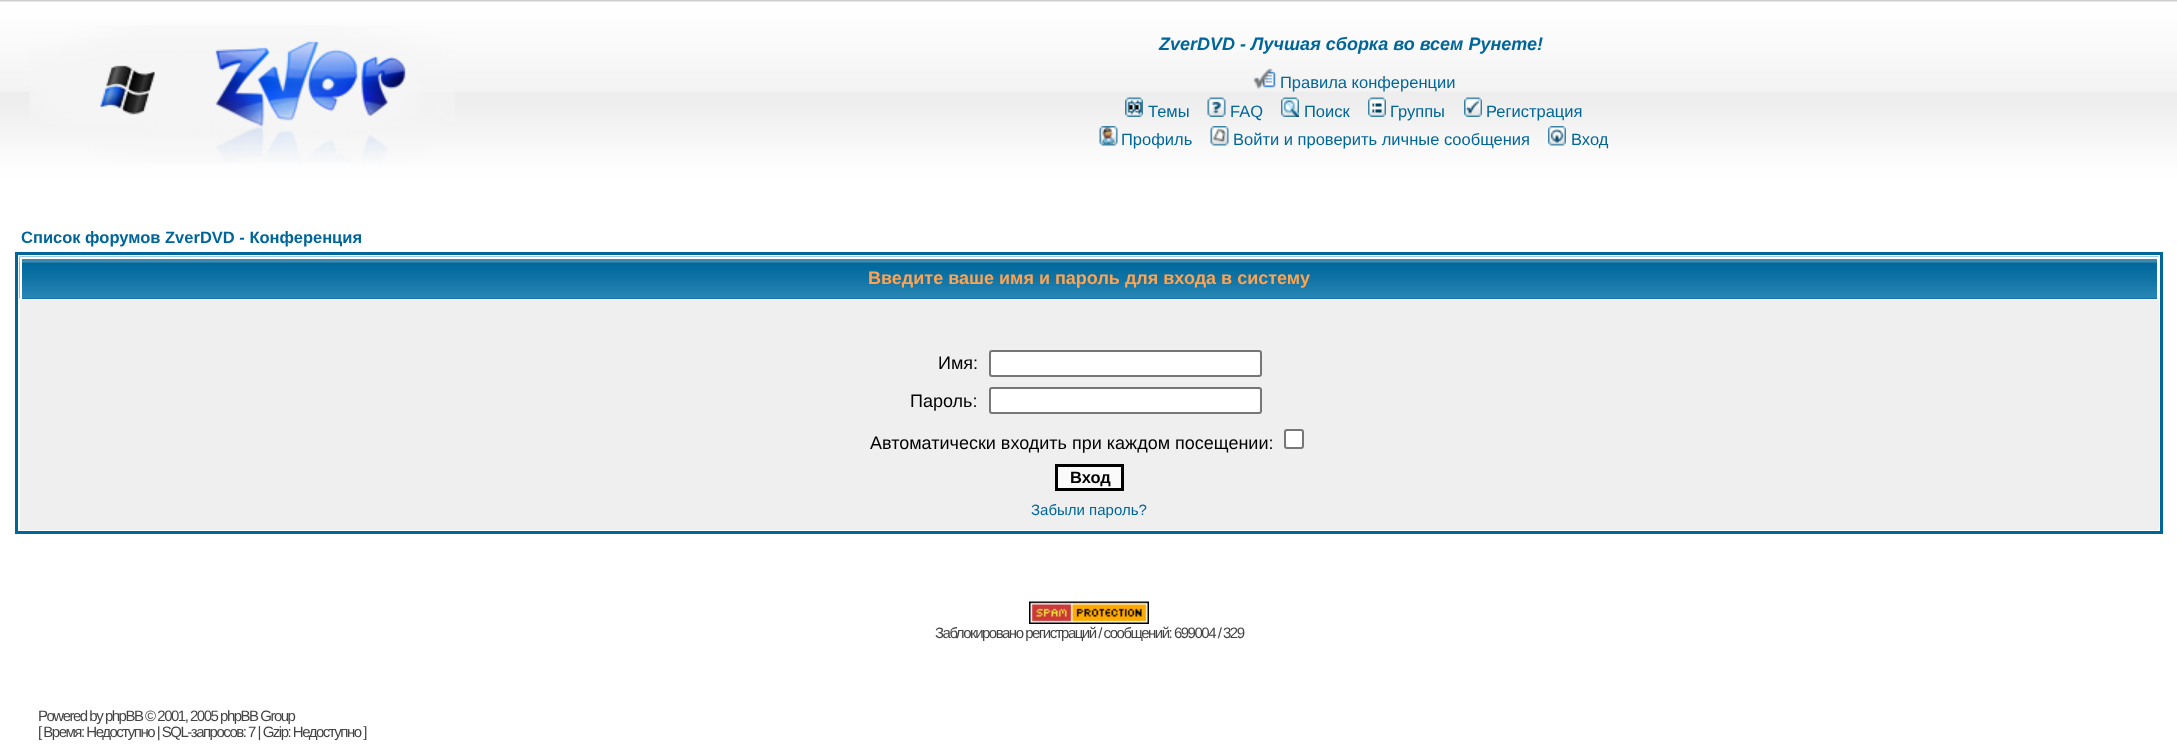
<svg xmlns="http://www.w3.org/2000/svg" width="2177" height="744">
	<rect width="100%" height="100%" fill="#FFFFFF" />
	<image x="0" y="0" width="2177" height="180" href="assets/img1.png" />
	<image x="29" y="25" width="426" height="138" href="assets/img2.png" />
	<text x="1159" y="50" font-family="Liberation Sans" font-size="18" font-weight="700" font-style="italic" fill="#006699">ZverDVD - Лучшая сборка во всем Рунете!</text>
	<image x="1253" y="68" width="23" height="21" href="assets/img3.png" />
	<text x="1280" y="88" font-family="Liberation Sans" font-size="16.5" fill="#006699">Правила конференции</text>
	<image x="1125" y="97" width="18" height="20" href="assets/img4.png" />
	<text x="1148" y="117" font-family="Liberation Sans" font-size="16.5" fill="#006699">Темы</text>
	<image x="1207" y="97" width="19" height="20" href="assets/img5.png" />
	<text x="1230" y="117" font-family="Liberation Sans" font-size="16.5" fill="#006699">FAQ</text>
	<image x="1281" y="97" width="18" height="20" href="assets/img6.png" />
	<text x="1304" y="117" font-family="Liberation Sans" font-size="16.5" fill="#006699">Поиск</text>
	<image x="1368" y="97" width="18" height="20" href="assets/img7.png" />
	<text x="1390" y="117" font-family="Liberation Sans" font-size="16.5" fill="#006699">Группы</text>
	<image x="1464" y="97" width="18" height="20" href="assets/img8.png" />
	<text x="1486" y="117" font-family="Liberation Sans" font-size="16.5" fill="#006699">Регистрация</text>
	<image x="1099" y="126" width="19" height="20" href="assets/img9.png" />
	<text x="1121" y="145" font-family="Liberation Sans" font-size="16.5" fill="#006699">Профиль</text>
	<image x="1210" y="126" width="19" height="20" href="assets/img10.png" />
	<text x="1233" y="145" font-family="Liberation Sans" font-size="16.5" fill="#006699">Войти и проверить личные сообщения</text>
	<image x="1548" y="126" width="18" height="20" href="assets/img11.png" />
	<text x="1571" y="145" font-family="Liberation Sans" font-size="16.5" fill="#006699">Вход</text>
	<text x="21" y="243" font-family="Liberation Sans" font-size="16.5" font-weight="700" fill="#006699">Список форумов ZverDVD - Конференция</text>
	<rect x="16.5" y="253.5" width="2145" height="279" fill="none" stroke="#006699" stroke-width="3" />
	<rect x="22" y="298" width="2135" height="1" fill="#006699" />
	<image x="19" y="256" width="2140" height="43" href="assets/img12.png" />
	<rect x="20" y="257" width="2139" height="2" fill="#FFFFFF" />
	<rect x="2157" y="257" width="2" height="42" fill="#FFFFFF" />
	<rect x="20" y="257" width="2" height="42" fill="#FFFFFF" />
	<text x="868" y="284" font-family="Liberation Sans" font-size="18" font-weight="700" fill="#FFA34F">Введите ваше имя и пароль для входа в систему</text>
	<rect x="20" y="300" width="2139" height="230" fill="#EFEFEF" />
	<text x="938" y="369" font-family="Liberation Sans" font-size="18" fill="#000000">Имя:</text>
	<rect x="990" y="351" width="271" height="25" rx="2" fill="#FFFFFF" stroke="#767676" stroke-width="2" />
	<text x="910" y="407" font-family="Liberation Sans" font-size="18" fill="#000000">Пароль:</text>
	<rect x="990" y="388" width="271" height="25" rx="2" fill="#FFFFFF" stroke="#767676" stroke-width="2" />
	<text x="870" y="449" font-family="Liberation Sans" font-size="18" fill="#000000">Автоматически входить при каждом посещении:</text>
	<rect x="1285" y="430" width="18" height="18" rx="2" fill="#FFFFFF" stroke="#767676" stroke-width="2" />
	<rect x="1056.5" y="465.5" width="66" height="24" fill="#FAFAFA" stroke="#000000" stroke-width="3" />
	<text x="1070" y="483" font-family="Liberation Sans" font-size="16.5" font-weight="700" fill="#000000">Вход</text>
	<text x="1031" y="515" font-family="Liberation Sans" font-size="15" fill="#006699">Забыли пароль?</text>
	<image x="1029" y="601" width="120" height="23" href="assets/img13.png" />
	<g font-family="Liberation Sans" font-size="15" letter-spacing="-1.5" fill="#444444">
		<text x="935" y="638">Заблокировано регистраций / сообщений: 699004 / 329</text>
		<text x="38" y="721">Powered by phpBB © 2001, 2005 phpBB Group</text>
		<text x="38" y="737">[ Время: Недоступно | SQL-запросов: 7 | Gzip: Недоступно ]</text>
	</g>
</svg>
